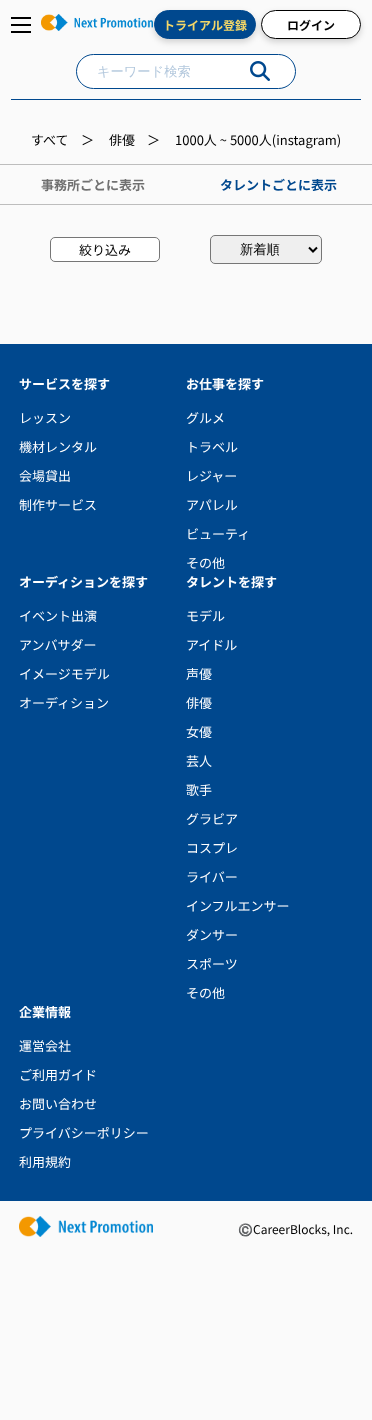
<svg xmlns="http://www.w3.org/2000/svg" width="372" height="1420">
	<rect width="100%" height="100%" fill="#FAFAFA" />
	<rect x="11" y="99" width="350" height="1" fill="#00488E" />
	<rect x="11" y="17" width="20" height="2" fill="#000000" />
	<rect x="11" y="24" width="20" height="2" fill="#000000" />
	<rect x="11" y="31" width="20" height="2" fill="#000000" />
	<image x="41" y="14" width="112" height="17" href="assets/img1.png" />
	<rect x="154" y="13" width="102" height="29" rx="14.5" fill="#000000" fill-opacity="0.16" filter="blur(3px)" />
	<rect x="154.5" y="10.5" width="101" height="28" rx="14" fill="#00488E" stroke="#00488E" />
	<text x="163" y="30" font-family="Noto Sans JP" font-size="12" font-weight="700" fill="#F4D767">トライアル登録</text>
	<rect x="261" y="13" width="100" height="29" rx="14.5" fill="#000000" fill-opacity="0.16" filter="blur(3px)" />
	<rect x="261.5" y="10.5" width="99" height="28" rx="14" fill="#FFFFFF" stroke="#000000" />
	<text x="287" y="30" font-family="Noto Sans JP" font-size="12" font-weight="700" fill="#000000">ログイン</text>
	<rect x="76.5" y="54.5" width="219" height="34" rx="17" fill="#FFFFFF" stroke="#00488E" />
	<text x="97" y="76" font-family="WenQuanYi Zen Hei" font-size="13.25" font-weight="500" fill="#B3C8DD">キーワード検索</text>
	<image x="250" y="61" width="20" height="20" href="assets/img2.png" />
	<g font-family="Noto Sans JP" font-size="13" fill="#000000">
		<text x="31" y="145">すべて</text>
		<text x="81" y="145">＞</text>
		<text x="109" y="145">俳優</text>
		<text x="147" y="145">＞</text>
		<text x="175" y="145">1000人 ~ 5000人(instagram)</text>
	</g>
	<rect x="0" y="164" width="372" height="1" fill="#BDBDBD" />
	<rect x="0" y="204" width="372" height="1" fill="#BDBDBD" />
	<text x="41" y="190" font-family="Noto Sans JP" font-size="13" font-weight="700" fill="#707070">事務所ごとに表示</text>
	<text x="220" y="190" font-family="Noto Sans JP" font-size="13" font-weight="700" fill="#00488E">タレントごとに表示</text>
	<rect x="50.5" y="237.5" width="109" height="24" rx="4.5" fill="#FFFFFF" stroke="#767676" />
	<text x="79" y="255" font-family="Noto Sans JP" font-size="13" fill="#000000">絞り込み</text>
	<rect x="210.5" y="235.5" width="111" height="28" rx="4.5" fill="#EFEFEF" stroke="#767676" />
	<path d="M309 247.5L313 251.5L317 247.5" fill="none" stroke="#000000" stroke-width="2" />
	<text x="240" y="254" font-family="WenQuanYi Zen Hei" font-size="13.25" font-weight="500" fill="#000000">新着順</text>
	<rect x="0" y="344" width="372" height="857" fill="#00488E" />
	<text x="19" y="389" font-family="Noto Sans JP" font-size="13" font-weight="700" fill="#FFFFFF">サービスを探す</text>
	<g font-family="Noto Sans JP" font-size="13" fill="#FFFFFF">
		<text x="19" y="423">レッスン</text>
		<text x="19" y="452">機材レンタル</text>
		<text x="19" y="481">会場貸出</text>
		<text x="19" y="510">制作サービス</text>
	</g>
	<text x="186" y="389" font-family="Noto Sans JP" font-size="13" font-weight="700" fill="#FFFFFF">お仕事を探す</text>
	<g font-family="Noto Sans JP" font-size="13" fill="#FFFFFF">
		<text x="186" y="423">グルメ</text>
		<text x="186" y="452">トラベル</text>
		<text x="186" y="481">レジャー</text>
		<text x="186" y="510">アパレル</text>
		<text x="186" y="539">ビューティ</text>
		<text x="186" y="568">その他</text>
	</g>
	<text x="19" y="587" font-family="Noto Sans JP" font-size="13" font-weight="700" fill="#FFFFFF">オーディションを探す</text>
	<g font-family="Noto Sans JP" font-size="13" fill="#FFFFFF">
		<text x="19" y="621">イベント出演</text>
		<text x="19" y="650">アンバサダー</text>
		<text x="19" y="679">イメージモデル</text>
		<text x="19" y="708">オーディション</text>
	</g>
	<text x="186" y="587" font-family="Noto Sans JP" font-size="13" font-weight="700" fill="#FFFFFF">タレントを探す</text>
	<g font-family="Noto Sans JP" font-size="13" fill="#FFFFFF">
		<text x="186" y="621">モデル</text>
		<text x="186" y="650">アイドル</text>
		<text x="186" y="679">声優</text>
		<text x="186" y="708">俳優</text>
		<text x="186" y="737">女優</text>
		<text x="186" y="766">芸人</text>
		<text x="186" y="795">歌手</text>
		<text x="186" y="824">グラビア</text>
		<text x="186" y="853">コスプレ</text>
		<text x="186" y="882">ライバー</text>
		<text x="186" y="911">インフルエンサー</text>
		<text x="186" y="940">ダンサー</text>
		<text x="186" y="969">スポーツ</text>
		<text x="186" y="998">その他</text>
	</g>
	<text x="19" y="1017" font-family="Noto Sans JP" font-size="13" font-weight="700" fill="#FFFFFF">企業情報</text>
	<g font-family="Noto Sans JP" font-size="13" fill="#FFFFFF">
		<text x="19" y="1051">運営会社</text>
		<text x="19" y="1080">ご利用ガイド</text>
		<text x="19" y="1109">お問い合わせ</text>
		<text x="19" y="1138">プライバシーポリシー</text>
		<text x="19" y="1167">利用規約</text>
	</g>
	<image x="19" y="1216" width="134" height="21" href="assets/img3.png" />
	<text x="238" y="1234" font-family="Noto Color Emoji" font-size="12" fill="#000000">©️</text>
	<text x="253" y="1234" font-family="Noto Sans JP" font-size="12" fill="#000000">CareerBlocks, Inc.</text>
</svg>
